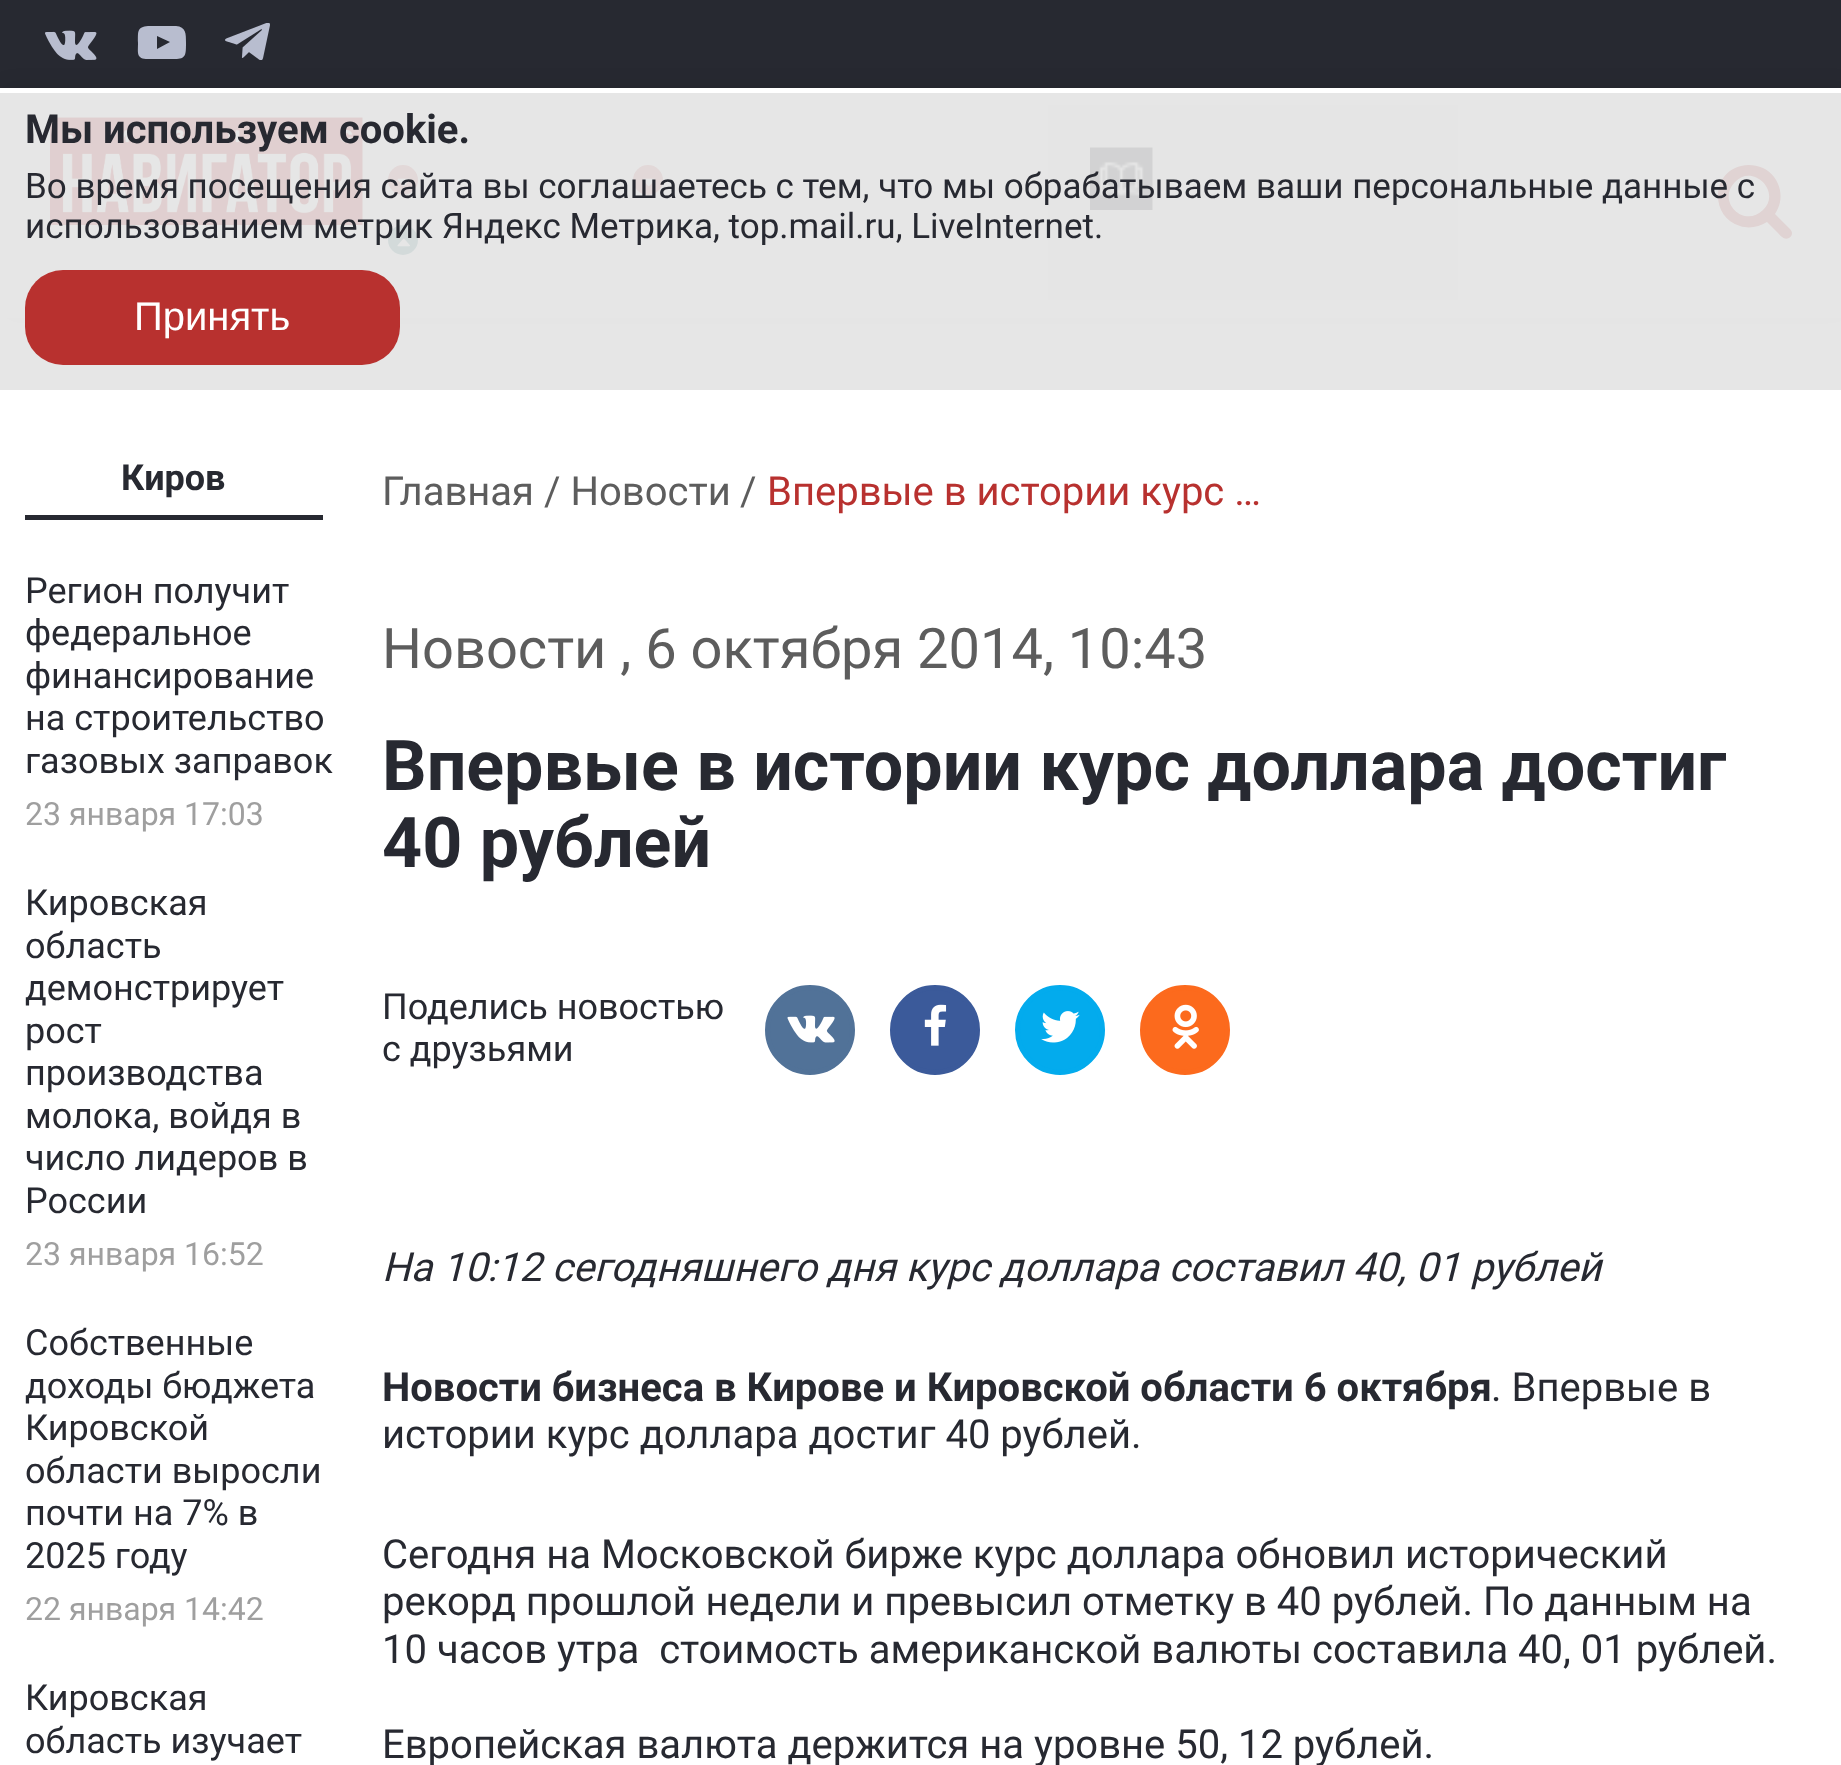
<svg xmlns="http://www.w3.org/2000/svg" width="1841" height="1765">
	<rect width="100%" height="100%" fill="#FFFFFF" />
	<rect x="0" y="0" width="1841" height="88" fill="#272931" />
	<image x="45" y="30" width="52" height="30" href="assets/img1.png" />
	<path d="M157 49L170 42L157 36ZM162 26H176C186 27 186 33 186 43C186 55 186 59 175 59H148C136 59 138 53 138 43C138 31 137 27 148 26Z" fill="#B8BDCF" />
	<image x="225" y="23" width="45" height="37" href="assets/img2.png" />
	<rect x="5" y="88" width="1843" height="230" fill="#000000" fill-opacity="0.13" filter="blur(10px)" />
	<rect x="0" y="88" width="1841" height="230" fill="#FFFFFF" />
	<image x="50" y="117" width="313" height="108" href="assets/img3.png" />
	<circle cx="403" cy="180" r="15" fill="#CD6363" />
	<image x="397" y="178" width="13" height="9" href="assets/img4.png" />
	<circle cx="648" cy="180" r="15" fill="#CD6363" />
	<image x="642" y="178" width="13" height="9" href="assets/img4.png" />
	<circle cx="403" cy="240" r="15" fill="#347E7E" />
	<image x="397" y="238" width="13" height="9" href="assets/img5.png" />
	<rect x="1048" y="105" width="410" height="195" fill="#F3F3F3" />
	<image x="1090" y="147" width="63" height="63" href="assets/img6.png" />
	<path d="M1763 210C1782 192 1753 163 1735 182C1716 201 1744 229 1763 210ZM1792 233C1792 235 1791 237 1789 238C1784 241 1780 235 1777 232L1767 222C1759 227 1749 229 1740 226C1710 217 1711 173 1741 166C1748 164 1756 165 1763 168C1780 176 1786 198 1775 214L1790 229C1791 230 1792 232 1792 233Z" fill="#B8312F" />
	<rect x="0" y="93" width="1841" height="297" fill="#E3E3E3" fill-opacity="0.91" />
	<text x="25" y="143" font-family="Roboto" font-size="40" font-weight="700" fill="#272931">Мы используем cookie.</text>
	<g font-family="Roboto" font-size="35" fill="#272931">
		<text x="25" y="198">Во время посещения сайта вы соглашаетесь с тем, что мы обрабатываем ваши персональные данные с</text>
		<text x="25" y="238">использованием метрик Яндекс Метрика, top.mail.ru, LiveInternet.</text>
	</g>
	<rect x="25" y="270" width="375" height="95" rx="38" fill="#B8312F" />
	<text x="134" y="330" font-family="Liberation Sans" font-size="40" fill="#FFFFFF">Принять</text>
	<rect x="25" y="515" width="298" height="5" fill="#272931" />
	<text x="121" y="490" font-family="Roboto" font-size="36" font-weight="700" fill="#272931">Киров</text>
	<g font-family="Roboto" font-size="36" fill="#272931">
		<text x="25" y="603">Регион получит</text>
		<text x="25" y="645">федеральное</text>
		<text x="25" y="688">финансирование</text>
		<text x="25" y="730">на строительство</text>
		<text x="25" y="773">газовых заправок</text>
	</g>
	<text x="25" y="825" font-family="Roboto" font-size="32" fill="#9F9F9F">23 января 17:03</text>
	<g font-family="Roboto" font-size="36" fill="#272931">
		<text x="25" y="915">Кировская</text>
		<text x="25" y="958">область</text>
		<text x="25" y="1000">демонстрирует</text>
		<text x="25" y="1043">рост</text>
		<text x="25" y="1085">производства</text>
		<text x="25" y="1128">молока, войдя в</text>
		<text x="25" y="1170">число лидеров в</text>
		<text x="25" y="1213">России</text>
	</g>
	<text x="25" y="1265" font-family="Roboto" font-size="32" fill="#9F9F9F">23 января 16:52</text>
	<g font-family="Roboto" font-size="36" fill="#272931">
		<text x="25" y="1355">Собственные</text>
		<text x="25" y="1398">доходы бюджета</text>
		<text x="25" y="1440">Кировской</text>
		<text x="25" y="1483">области выросли</text>
		<text x="25" y="1525">почти на 7% в</text>
		<text x="25" y="1568">2025 году</text>
	</g>
	<text x="25" y="1620" font-family="Roboto" font-size="32" fill="#9F9F9F">22 января 14:42</text>
	<g font-family="Roboto" font-size="36" fill="#272931">
		<text x="25" y="1710">Кировская</text>
		<text x="25" y="1753">область изучает</text>
	</g>
	<g font-family="Roboto" font-size="40" fill="#5D5D5D">
		<text x="382" y="505">Главная</text>
		<text x="544" y="505">/ Новости</text>
		<text x="740" y="505">/</text>
	</g>
	<text x="767" y="505" font-family="Roboto" font-size="40" fill="#B8312F">Впервые в истории курс …</text>
	<text x="382" y="668" font-family="Roboto" font-size="56" fill="#5D5D5D">Новости , 6 октября 2014, 10:43</text>
	<g font-family="Roboto" font-size="70" font-weight="700" fill="#272931">
		<text x="382" y="790">Впервые в истории курс доллара достиг</text>
		<text x="382" y="867">40 рублей</text>
	</g>
	<g font-family="Roboto" font-size="36" fill="#272931">
		<text x="382" y="1019">Поделись новостью</text>
		<text x="382" y="1061">с друзьями</text>
	</g>
	<circle cx="810" cy="1030" r="42.5" fill="#517298" stroke="#517298" stroke-width="5" />
	<image x="787" y="1015" width="48" height="28" href="assets/img7.png" />
	<circle cx="935" cy="1030" r="42.5" fill="#3B5A9A" stroke="#3B5A9A" stroke-width="5" />
	<image x="924" y="1004" width="23" height="42" href="assets/img8.png" />
	<circle cx="1060" cy="1030" r="42.5" fill="#03ABED" stroke="#03ABED" stroke-width="5" />
	<image x="1041" y="1011" width="39" height="32" href="assets/img9.png" />
	<circle cx="1185" cy="1030" r="42.5" fill="#FC6A1D" stroke="#FC6A1D" stroke-width="5" />
	<image x="1172" y="1004" width="27" height="45" href="assets/img10.png" />
	<text x="382" y="1281" font-family="Roboto" font-size="40" font-style="italic" fill="#272931">На 10:12 сегодняшнего дня курс доллара составил 40, 01 рублей</text>
	<text x="382" y="1401" font-family="Roboto" font-size="40" font-weight="700" fill="#272931">Новости бизнеса в Кирове и Кировской области 6 октября</text>
	<g font-family="Roboto" font-size="40" fill="#272931">
		<text x="1491" y="1401">. Впервые в</text>
		<text x="382" y="1448">истории курс доллара достиг 40 рублей.</text>
		<text x="382" y="1568">Сегодня на Московской бирже курс доллара обновил исторический</text>
		<text x="382" y="1615">рекорд прошлой недели и превысил отметку в 40 рублей. По данным на</text>
		<text x="382" y="1663" xml:space="preserve">10 часов утра  стоимость американской валюты составила 40, 01 рублей.</text>
		<text x="382" y="1758">Европейская валюта держится на уровне 50, 12 рублей.</text>
	</g>
</svg>
